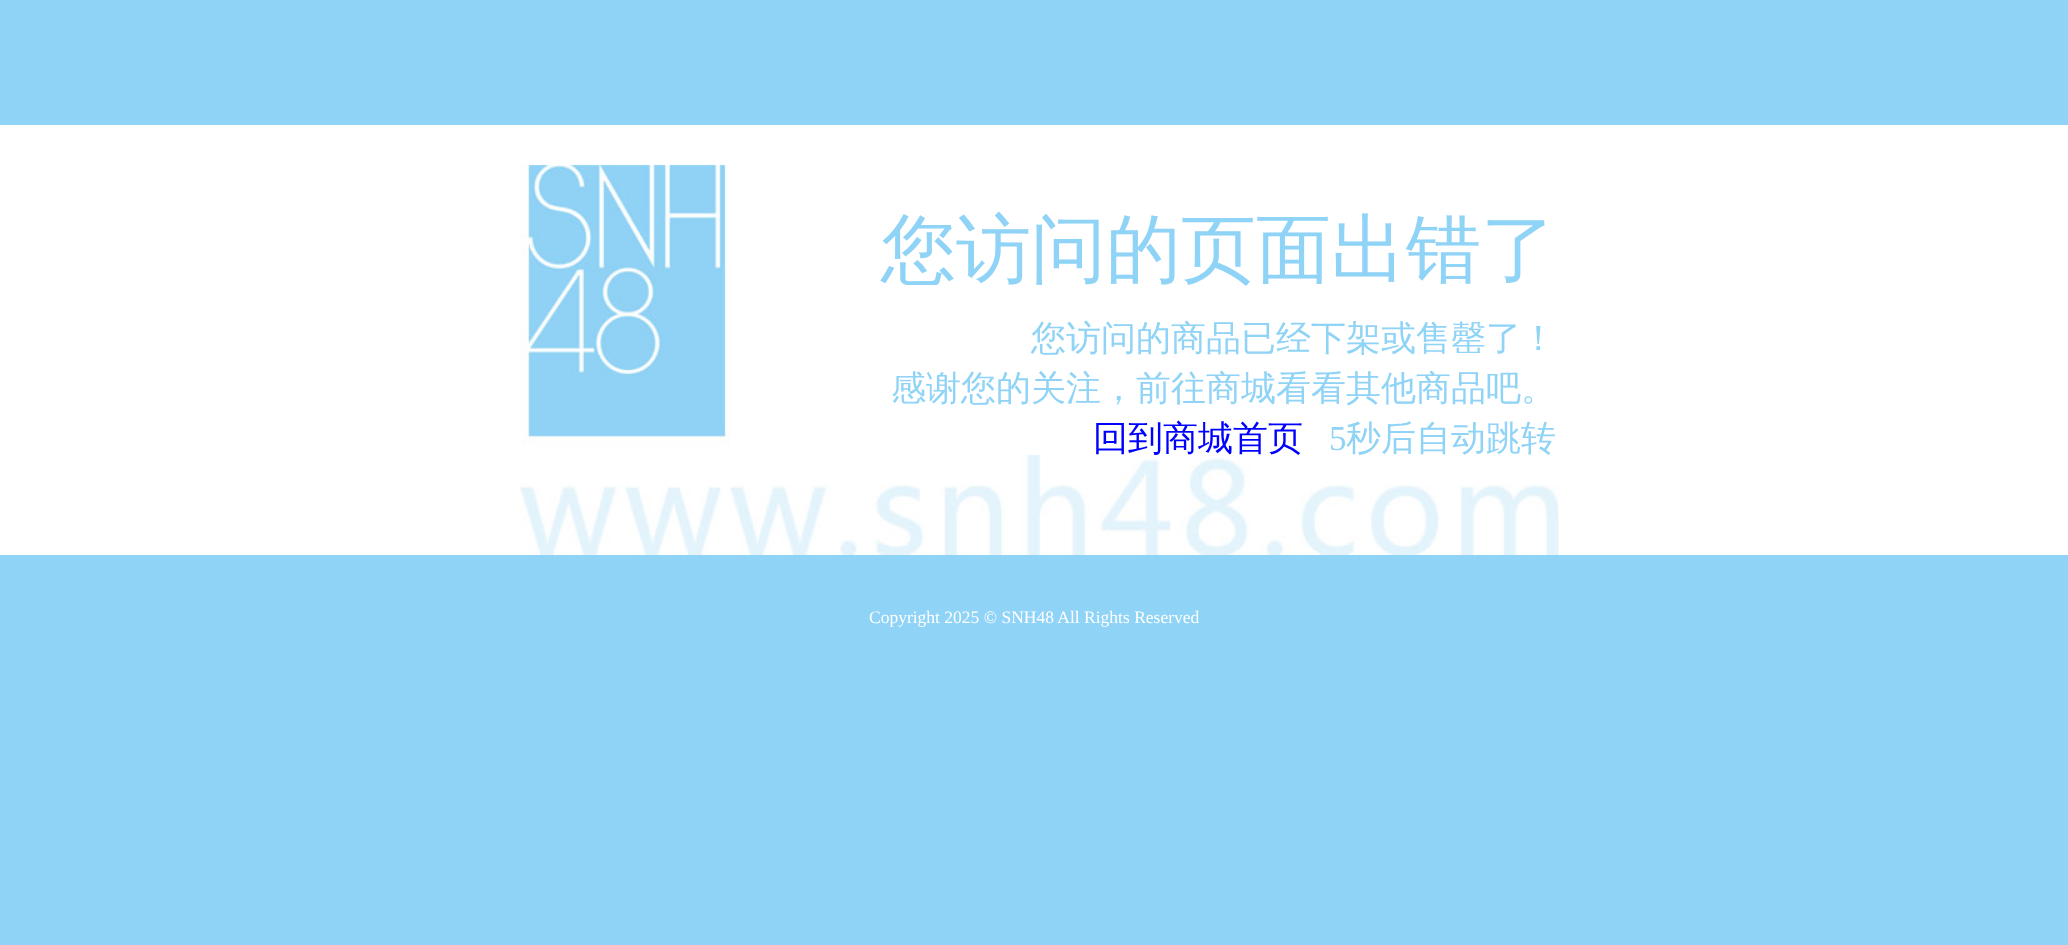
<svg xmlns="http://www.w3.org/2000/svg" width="2068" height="945">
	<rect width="100%" height="100%" fill="#8FD3F6" />
	<rect x="0" y="125" width="2068" height="430" fill="#FFFFFF" />
	<image x="520" y="164" width="1040" height="391" href="assets/img1.png" />
	<text x="881" y="275" font-family="WenQuanYi Zen Hei" font-size="75" font-weight="500" fill="#8FD3F6">您访问的页面出错了</text>
	<g font-family="WenQuanYi Zen Hei" font-size="35" font-weight="500" fill="#8FD3F6">
		<text x="1031" y="350">您访问的商品已经下架或售罄了！</text>
		<text x="891" y="400">感谢您的关注，前往商城看看其他商品吧。</text>
	</g>
	<text x="1093" y="450" font-family="WenQuanYi Zen Hei" font-size="35" font-weight="500" fill="#0000FF">回到商城首页</text>
	<text x="1329" y="450" font-family="Liberation Serif" font-size="35" fill="#8FD3F6">5</text>
	<text x="1346" y="450" font-family="WenQuanYi Zen Hei" font-size="35" font-weight="500" fill="#8FD3F6">秒后自动跳转</text>
	<text x="869" y="623" font-family="Liberation Serif" font-size="17.5" fill="#FFFFFF">Copyright 2025 © SNH48 All Rights Reserved</text>
</svg>
